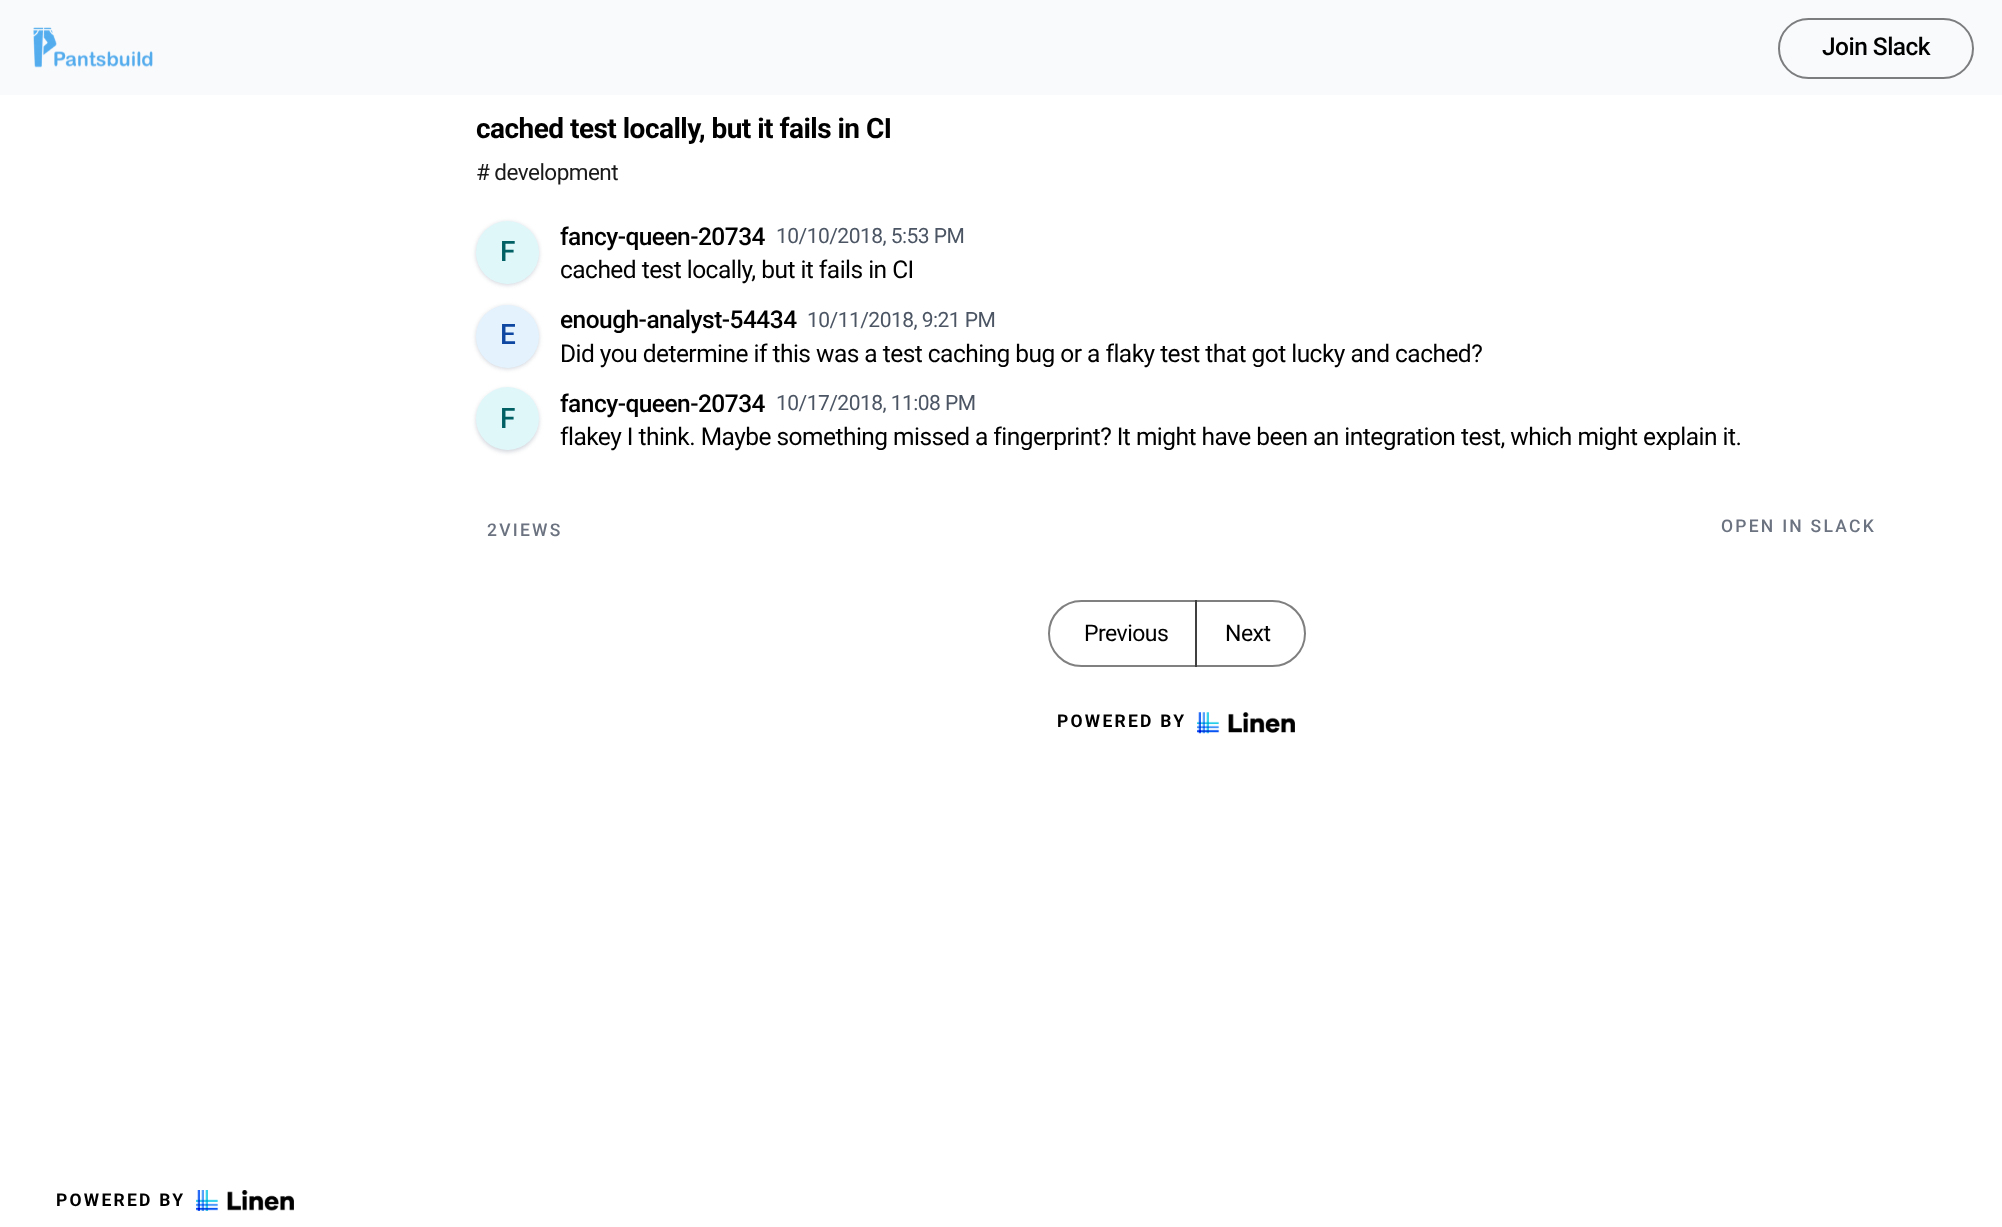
<svg xmlns="http://www.w3.org/2000/svg" width="2002" height="1227">
	<rect width="100%" height="100%" fill="#FFFFFF" />
	<rect x="0" y="0" width="2002" height="95" fill="#F8FAFC" />
	<image x="33" y="27" width="120" height="41" href="assets/img1.png" />
	<rect x="1779" y="19" width="194" height="59" rx="29.5" fill="none" stroke="#7C7D7E" stroke-width="2" />
	<text x="1822" y="55" font-family="Roboto" font-size="24.5" font-weight="500" letter-spacing="-0.53" fill="#000000">Join Slack</text>
	<text x="476" y="138" font-family="Roboto" font-size="28" font-weight="700" letter-spacing="-0.53" fill="#000000">cached test locally, but it fails in CI</text>
	<text x="476" y="180" font-family="Roboto" font-size="22.5" letter-spacing="-0.53" fill="#1A1A1A"># development</text>
	<rect x="476" y="222" width="63" height="63" rx="31.5" fill="#D1D5DB" filter="blur(2px)" />
	<circle cx="507.5" cy="252.5" r="31.5" fill="#E0F7FA" />
	<text x="500" y="261" font-family="Roboto" font-size="28" font-weight="500" letter-spacing="-0.53" fill="#006064">F</text>
	<text x="560" y="245" font-family="Roboto" font-size="24.5" font-weight="500" letter-spacing="-0.53" fill="#000000">fancy-queen-20734</text>
	<text x="776" y="243" font-family="Roboto" font-size="21" letter-spacing="-0.53" fill="#4B5563">10/10/2018, 5:53 PM</text>
	<text x="560" y="278" font-family="Roboto" font-size="24.5" letter-spacing="-0.53" fill="#000000">cached test locally, but it fails in CI</text>
	<rect x="476" y="306" width="63" height="63" rx="31.5" fill="#D1D5DB" filter="blur(2px)" />
	<circle cx="507.5" cy="336.5" r="31.5" fill="#E3F2FD" />
	<text x="500" y="344" font-family="Roboto" font-size="28" font-weight="500" letter-spacing="-0.53" fill="#0D47A1">E</text>
	<text x="560" y="328" font-family="Roboto" font-size="24.5" font-weight="500" letter-spacing="-0.53" fill="#000000">enough-analyst-54434</text>
	<text x="807" y="327" font-family="Roboto" font-size="21" letter-spacing="-0.53" fill="#4B5563">10/11/2018, 9:21 PM</text>
	<text x="560" y="362" font-family="Roboto" font-size="24.5" letter-spacing="-0.53" fill="#000000">Did you determine if this was a test caching bug or a flaky test that got lucky and cached?</text>
	<rect x="476" y="389" width="63" height="63" rx="31.5" fill="#D1D5DB" filter="blur(2px)" />
	<circle cx="507.5" cy="418.5" r="31.5" fill="#E0F7FA" />
	<text x="500" y="428" font-family="Roboto" font-size="28" font-weight="500" letter-spacing="-0.53" fill="#006064">F</text>
	<text x="560" y="412" font-family="Roboto" font-size="24.5" font-weight="500" letter-spacing="-0.53" fill="#000000">fancy-queen-20734</text>
	<text x="776" y="410" font-family="Roboto" font-size="21" letter-spacing="-0.53" fill="#4B5563">10/17/2018, 11:08 PM</text>
	<text x="560" y="445" font-family="Roboto" font-size="24.5" letter-spacing="-0.53" fill="#000000">flakey I think. Maybe something missed a fingerprint? It might have been an integration test, which might explain it.</text>
	<g font-family="Roboto" font-size="17.5" font-weight="500" letter-spacing="2.25" fill="#6B7280">
		<text x="487" y="536">2VIEWS</text>
		<text x="1721" y="532">OPEN IN SLACK</text>
	</g>
	<path d="M1081.5 601H1196V666H1081.5C1063.5 666 1049 651.5 1049 633.5C1049 615.5 1063.5 601 1081.5 601Z" fill="none" stroke="#808080" stroke-width="2" />
	<text x="1084" y="641" font-family="Roboto" font-size="23" letter-spacing="-0.53" fill="#000000">Previous</text>
	<path d="M1196 601H1272.5C1290.5 601 1305 615.5 1305 633.5C1305 651.5 1290.5 666 1272.5 666H1196Z" fill="none" stroke="#000000" stroke-opacity="0.5" stroke-width="2" />
	<text x="1225" y="641" font-family="Roboto" font-size="23" letter-spacing="-0.53" fill="#000000">Next</text>
	<text x="1057" y="727" font-family="Roboto" font-size="17.5" font-weight="700" letter-spacing="2.25" fill="#000000">POWERED BY</text>
	<image x="1197" y="712" width="98" height="22" href="assets/img2.png" />
	<text x="56" y="1206" font-family="Roboto" font-size="17.5" font-weight="700" letter-spacing="2.25" fill="#000000">POWERED BY</text>
	<image x="196" y="1190" width="98" height="21" href="assets/img3.png" />
</svg>
